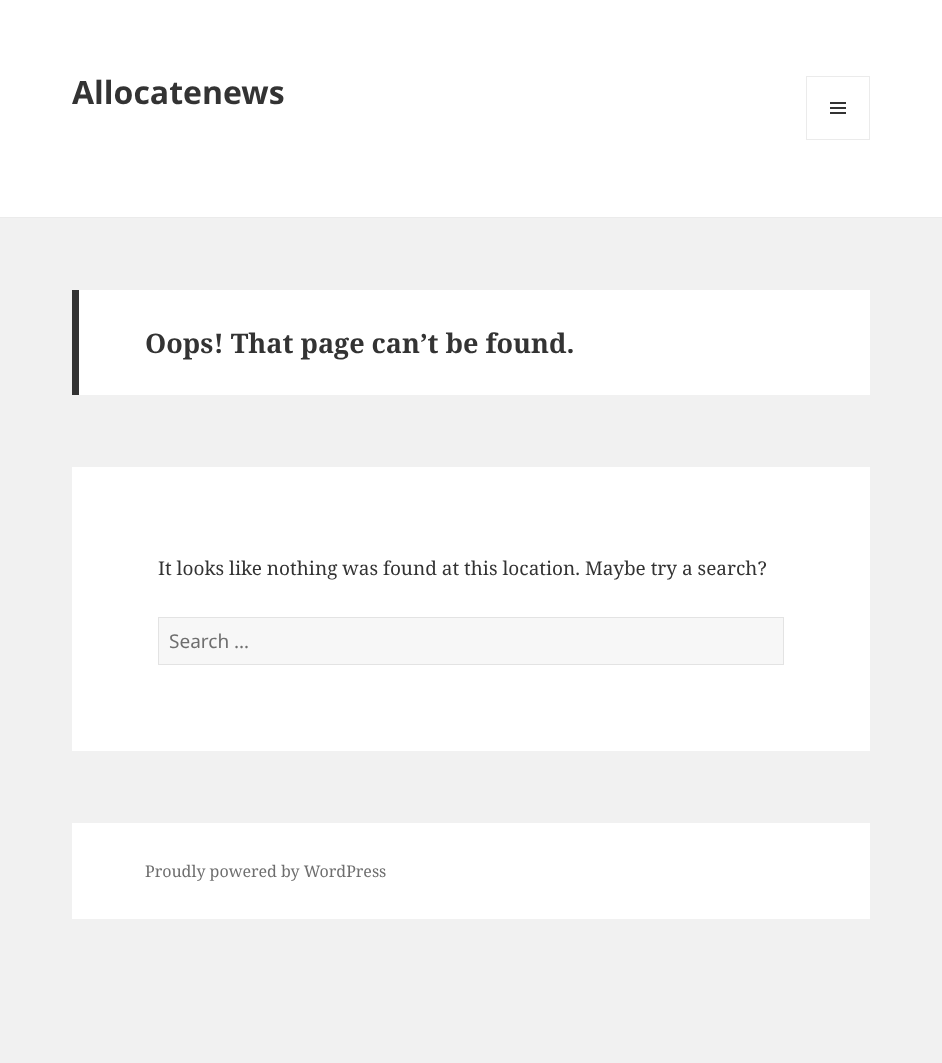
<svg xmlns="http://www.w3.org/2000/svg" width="942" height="1063">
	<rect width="100%" height="100%" fill="#F1F1F1" />
	<rect x="0" y="0" width="942" height="217" fill="#FFFFFF" />
	<rect x="0" y="217" width="942" height="1" fill="#EBEBEB" />
	<text x="72" y="104" font-family="Noto Sans" font-size="32" font-weight="700" fill="#333333">Allocatenews</text>
	<rect x="806.5" y="76.5" width="63" height="63" fill="none" stroke="#EBEBEB" />
	<image x="830" y="102" width="16" height="12" href="assets/img1.png" />
	<rect x="79" y="290" width="791" height="105" fill="#FFFFFF" />
	<rect x="72" y="290" width="7" height="105" fill="#333333" />
	<text x="145" y="353" font-family="Noto Serif" font-size="27" font-weight="700" fill="#333333">Oops! That page can’t be found.</text>
	<rect x="72" y="467" width="798" height="284" fill="#FFFFFF" />
	<text x="158" y="575" font-family="Noto Serif" font-size="19" fill="#333333">It looks like nothing was found at this location. Maybe try a search?</text>
	<rect x="158.5" y="617.5" width="625" height="47" fill="#F7F7F7" stroke="#E3E3E3" />
	<text x="169" y="648" font-family="Noto Sans" font-size="19" fill="#6E6E6E">Search …</text>
	<rect x="72" y="823" width="798" height="96" fill="#FFFFFF" />
	<text x="145" y="877" font-family="Noto Serif" font-size="16" fill="#6E6E6E">Proudly powered by WordPress</text>
</svg>
